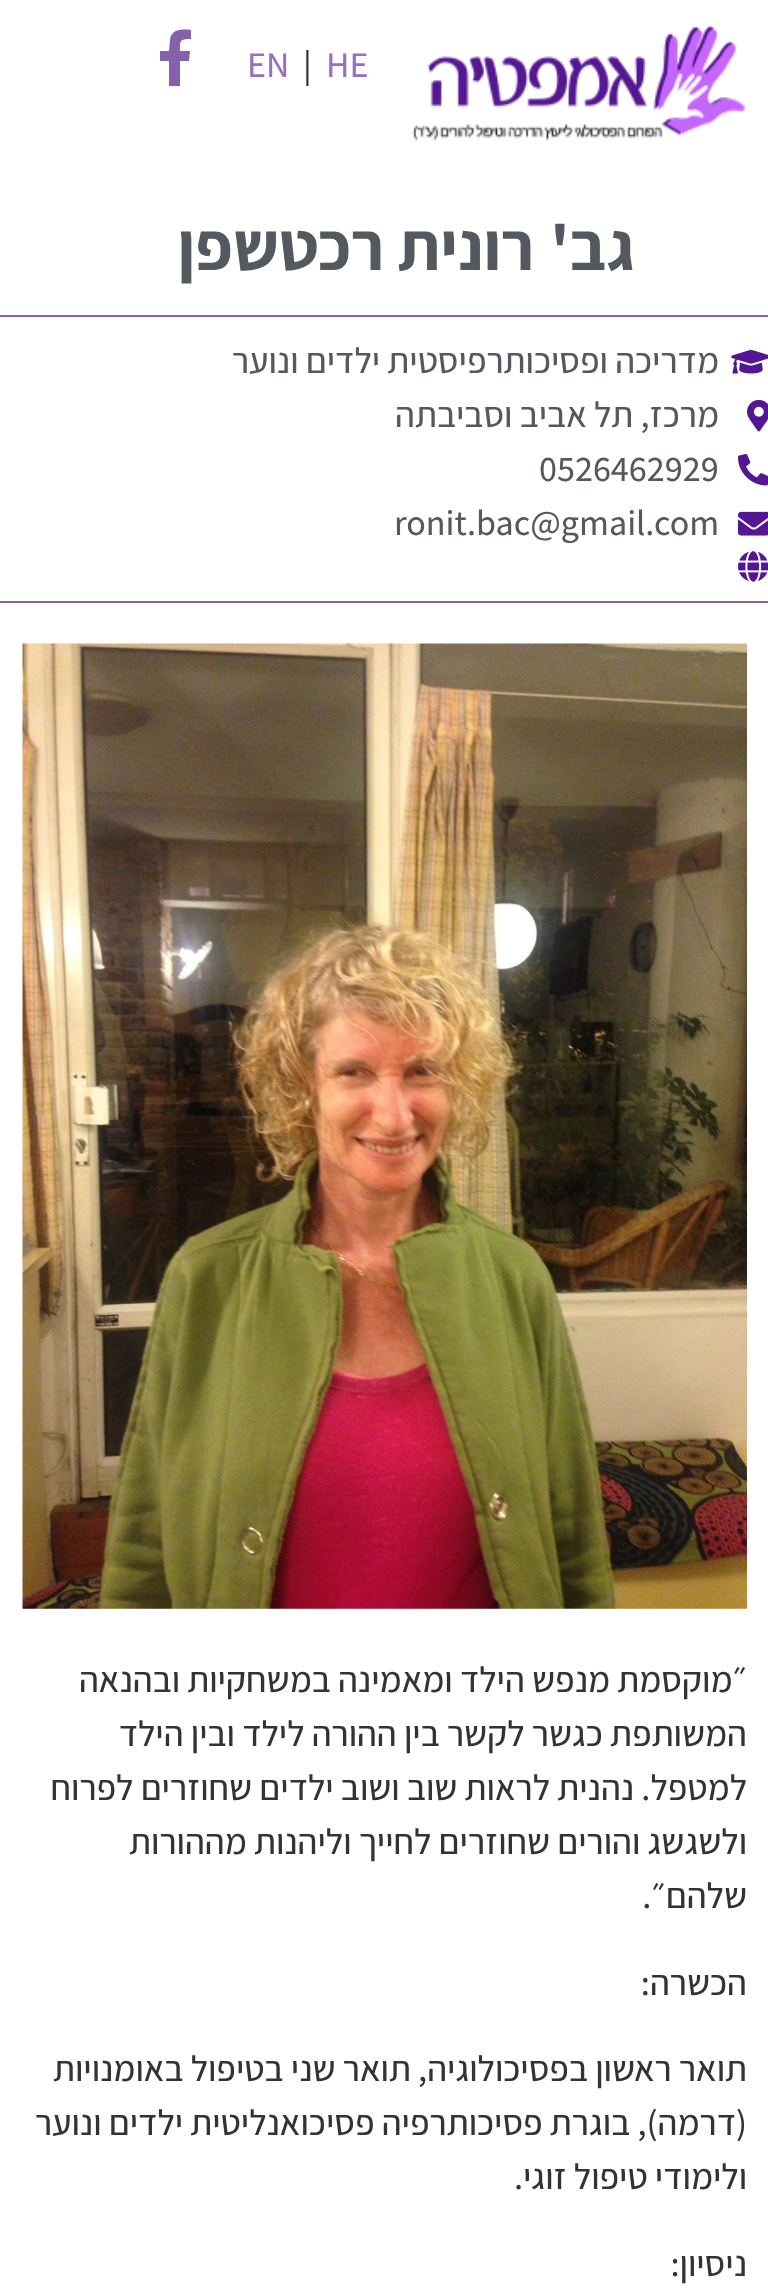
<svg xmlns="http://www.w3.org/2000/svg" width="768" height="2293">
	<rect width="100%" height="100%" fill="#FFFFFF" />
	<image x="412" y="25" width="334" height="117" href="assets/img1.png" />
	<text x="326" y="77" font-family="Assistant" font-size="36" font-weight="500" fill="#976FC1">HE</text>
	<text x="303" y="77" font-family="Assistant" font-size="36" font-weight="500" fill="#333333">|</text>
	<text x="247" y="77" font-family="Assistant" font-size="36" font-weight="500" fill="#976FC1">EN</text>
	<path d="M189 61H180V86H169V61H160V51H169L170 40C171 29 182 29 191 30V39C179 39 180 41 180 51H190Z" fill="#8461A8" />
	<g font-family="Assistant" font-size="67.5" font-weight="700" direction="rtl" fill="#54595F">
		<text x="635" y="270">גב'</text>
		<text x="534" y="270">רונית רכטשפן</text>
	</g>
	<rect x="0" y="315" width="768" height="2" fill="#8461A8" />
	<image x="731" y="349" width="37" height="25" href="assets/img2.png" />
	<text x="719" y="373" font-family="Assistant" font-size="36" font-weight="500" direction="rtl" fill="#54595F">מדריכה ופסיכותרפיסטית ילדים ונוער</text>
	<image x="747" y="399" width="21" height="33" href="assets/img3.png" />
	<text x="719" y="427" font-family="Assistant" font-size="36" font-weight="500" direction="rtl" fill="#54595F">מרכז, תל אביב וסביבתה</text>
	<image x="738" y="454" width="30" height="32" href="assets/img4.png" />
	<text x="539" y="481" font-family="Assistant" font-size="36" font-weight="500" fill="#54595F">0526462929</text>
	<image x="738" y="511" width="30" height="25" href="assets/img5.png" />
	<text x="394" y="535" font-family="Assistant" font-size="36" font-weight="500" fill="#54595F">ronit.bac@gmail.com</text>
	<image x="738" y="551" width="30" height="31" href="assets/img6.png" />
	<rect x="0" y="601" width="768" height="2" fill="#8461A8" />
	<image x="22" y="643" width="725" height="966" href="assets/img7.png" />
	<g font-family="Assistant" font-size="36" font-weight="500" direction="rtl" fill="#333333">
		<text x="747" y="1692">״מוקסמת מנפש הילד ומאמינה במשחקיות ובהנאה</text>
		<text x="747" y="1746">המשותפת כגשר לקשר בין ההורה לילד ובין הילד</text>
		<text x="747" y="1800">למטפל. נהנית לראות שוב ושוב ילדים שחוזרים לפרוח</text>
		<text x="747" y="1854">ולשגשג והורים שחוזרים לחייך וליהנות מההורות</text>
		<text x="747" y="1908">שלהם״.</text>
		<text x="747" y="1995">הכשרה:</text>
		<text x="747" y="2081">תואר ראשון בפסיכולוגיה, תואר שני בטיפול באומנויות</text>
		<text x="747" y="2135">(דרמה), בוגרת פסיכותרפיה פסיכואנליטית ילדים ונוער</text>
		<text x="747" y="2189">ולימודי טיפול זוגי.</text>
		<text x="747" y="2276">ניסיון:</text>
	</g>
</svg>
